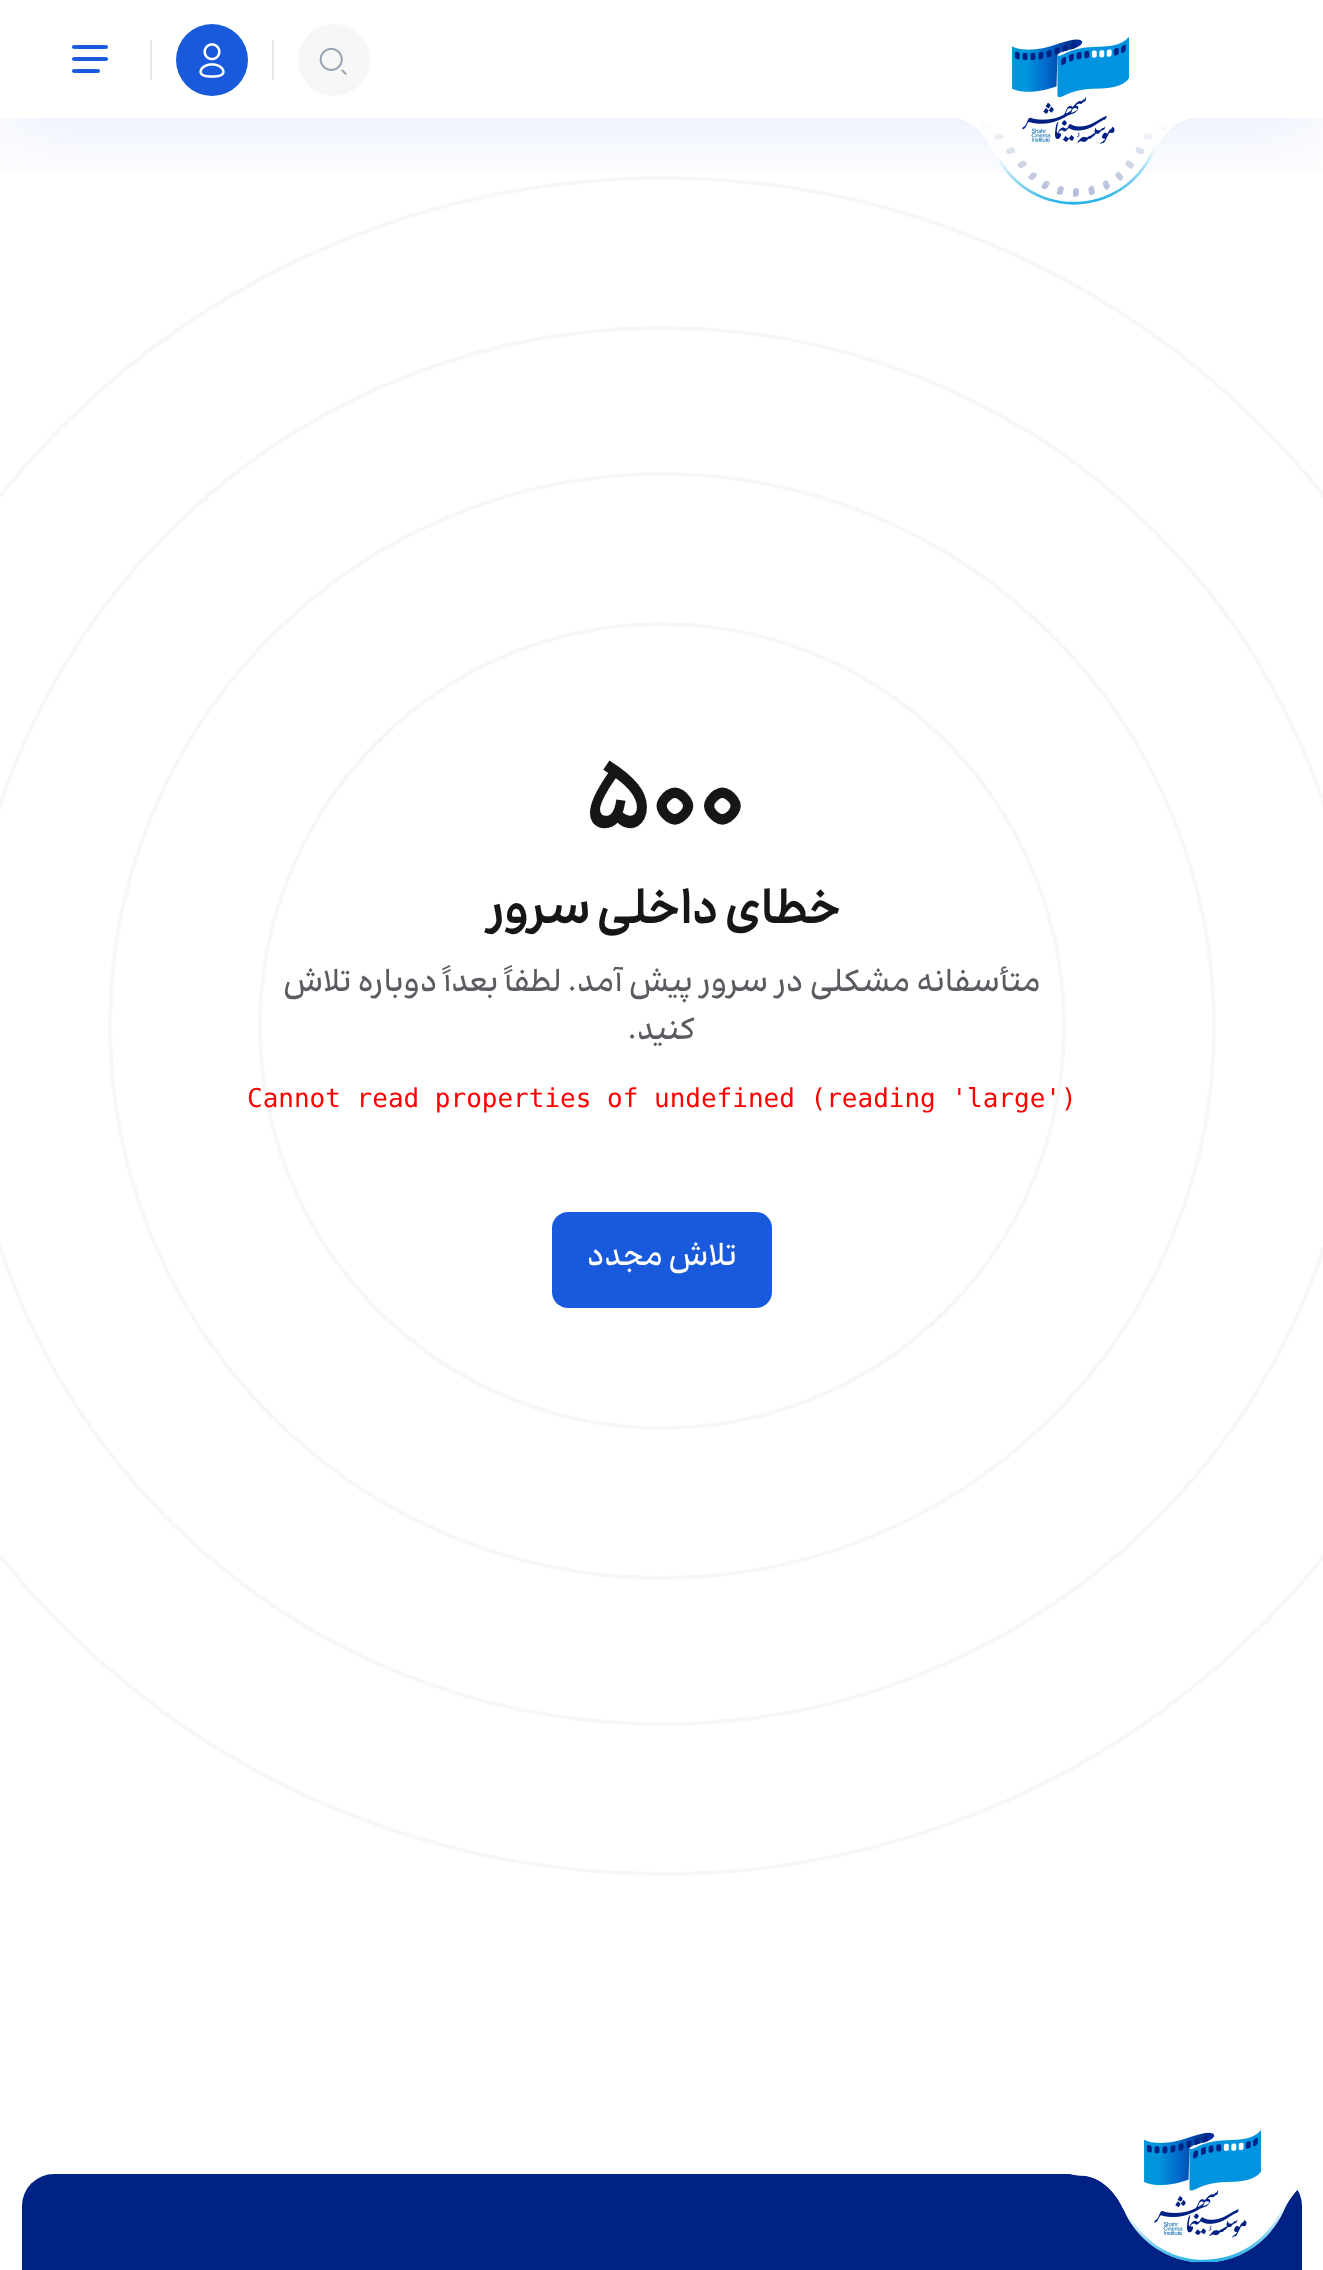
<svg xmlns="http://www.w3.org/2000/svg" width="1323" height="2270">
	<defs>
		<clipPath id="clip1"><rect x="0" y="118" width="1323" height="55" /></clipPath>
	</defs>
	<rect width="100%" height="100%" fill="#FFFFFF" />
	<circle cx="662" cy="1026" r="552" fill="none" stroke="#F7F7F8" stroke-width="4" />
	<circle cx="662" cy="1026" r="698" fill="none" stroke="#F7F7F8" stroke-width="4" />
	<circle cx="662" cy="1026" r="848" fill="none" stroke="#F7F7F8" stroke-width="4" />
	<g clip-path="url(#clip1)">
		<rect x="0" y="0" width="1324" height="118" fill="#185ADB" fill-opacity="0.15" filter="blur(50px)" />
	</g>
	<image x="957" y="118" width="234" height="87" href="assets/img2.png" />
	<image x="1012" y="37" width="117" height="107" href="assets/img1.png" />
	<circle cx="334" cy="60" r="36" fill="#F7F7F8" />
	<image x="319" y="47" width="28" height="28" href="assets/img3.png" />
	<rect x="272" y="40" width="2" height="40" fill="#E4E7EC" />
	<circle cx="212" cy="60" r="36" fill="#185ADB" />
	<image x="199" y="43" width="26" height="35" href="assets/img4.png" />
	<rect x="150" y="40" width="2" height="40" fill="#E4E7EC" />
	<image x="72" y="45" width="36" height="28" href="assets/img5.png" />
	<circle cx="662" cy="1026" r="402" fill="none" stroke="#F7F7F8" stroke-width="4" />
	<text x="583" y="825" font-family="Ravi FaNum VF" font-size="92" font-weight="700" fill="#161618">500</text>
	<text x="840" y="923" word-spacing="-3" font-family="Ravi FaNum VF" font-size="48" font-weight="700" direction="rtl" fill="#161618">خطای داخلی سرور</text>
	<g font-family="Ravi FaNum VF" font-size="32" direction="rtl" fill="#5A5A61">
		<text x="1041" y="991">متأسفانه مشکلی در سرور پیش آمد. لطفاً بعداً دوباره تلاش</text>
		<text x="696" y="1039">کنید.</text>
	</g>
	<text x="247" y="1107" font-family="DejaVu Sans Mono" font-size="26" fill="#FF0000">Cannot read properties of undefined (reading 'large')</text>
	<rect x="552" y="1212" width="220" height="96" rx="16" fill="#185ADB" />
	<text x="737" y="1265" word-spacing="-1" font-family="Ravi FaNum VF" font-size="32" direction="rtl" fill="#FFFFFF">تلاش مجدد</text>
	<rect x="22" y="2174" width="1280" height="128" rx="32" fill="#002284" />
	<image x="1070" y="2174" width="228" height="88" href="assets/img7.png" />
	<image x="1144" y="2130" width="117" height="108" href="assets/img6.png" />
</svg>
